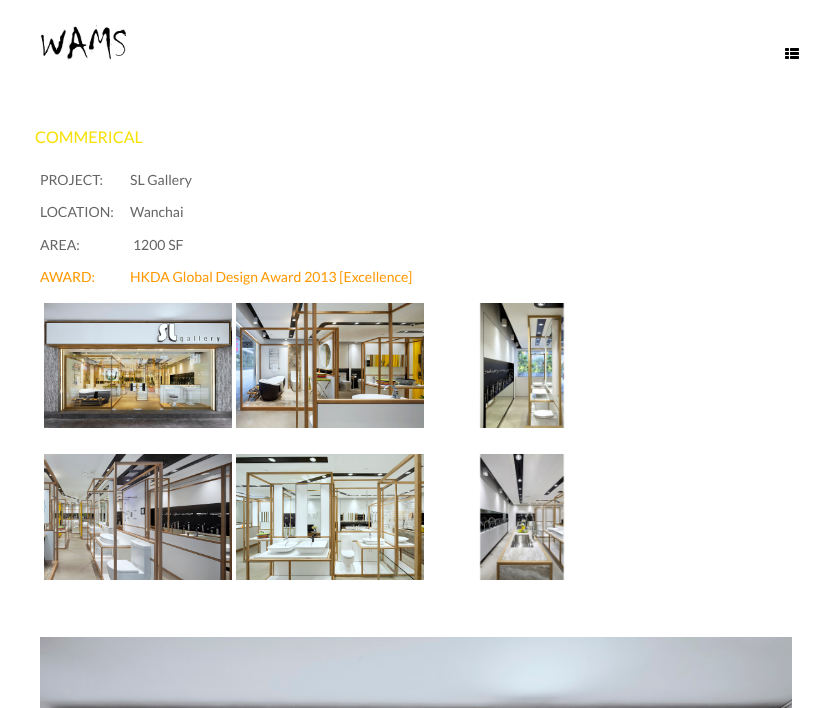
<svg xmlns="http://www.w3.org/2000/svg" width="832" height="708">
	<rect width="100%" height="100%" fill="#FFFFFF" />
	<image x="40" y="25" width="86" height="35" href="assets/img1.png" />
	<image x="785" y="48" width="14" height="11" href="assets/img2.png" />
	<text x="35" y="143" font-family="Lato" font-size="16" fill="#F7E108">COMMERICAL</text>
	<g font-family="Lato" font-size="14" fill="#666666">
		<text x="40" y="185">PROJECT:</text>
		<text x="130" y="185">SL Gallery</text>
		<text x="40" y="217">LOCATION:</text>
		<text x="130" y="217">Wanchai</text>
		<text x="40" y="250">AREA:</text>
		<text x="133" y="250">1200 SF</text>
	</g>
	<g font-family="Lato" font-size="14" fill="#FF9900">
		<text x="40" y="282">AWARD:</text>
		<text x="130" y="282">HKDA Global Design Award 2013 [Excellence]</text>
	</g>
	<image x="44" y="303" width="188" height="125" href="assets/img3.png" />
	<image x="236" y="303" width="188" height="125" href="assets/img4.png" />
	<image x="479" y="303" width="86" height="125" href="assets/img5.png" />
	<image x="44" y="454" width="188" height="126" href="assets/img6.png" />
	<image x="236" y="454" width="188" height="126" href="assets/img7.png" />
	<image x="479" y="454" width="86" height="126" href="assets/img8.png" />
	<image x="40" y="637" width="752" height="71" href="assets/img9.png" />
</svg>
